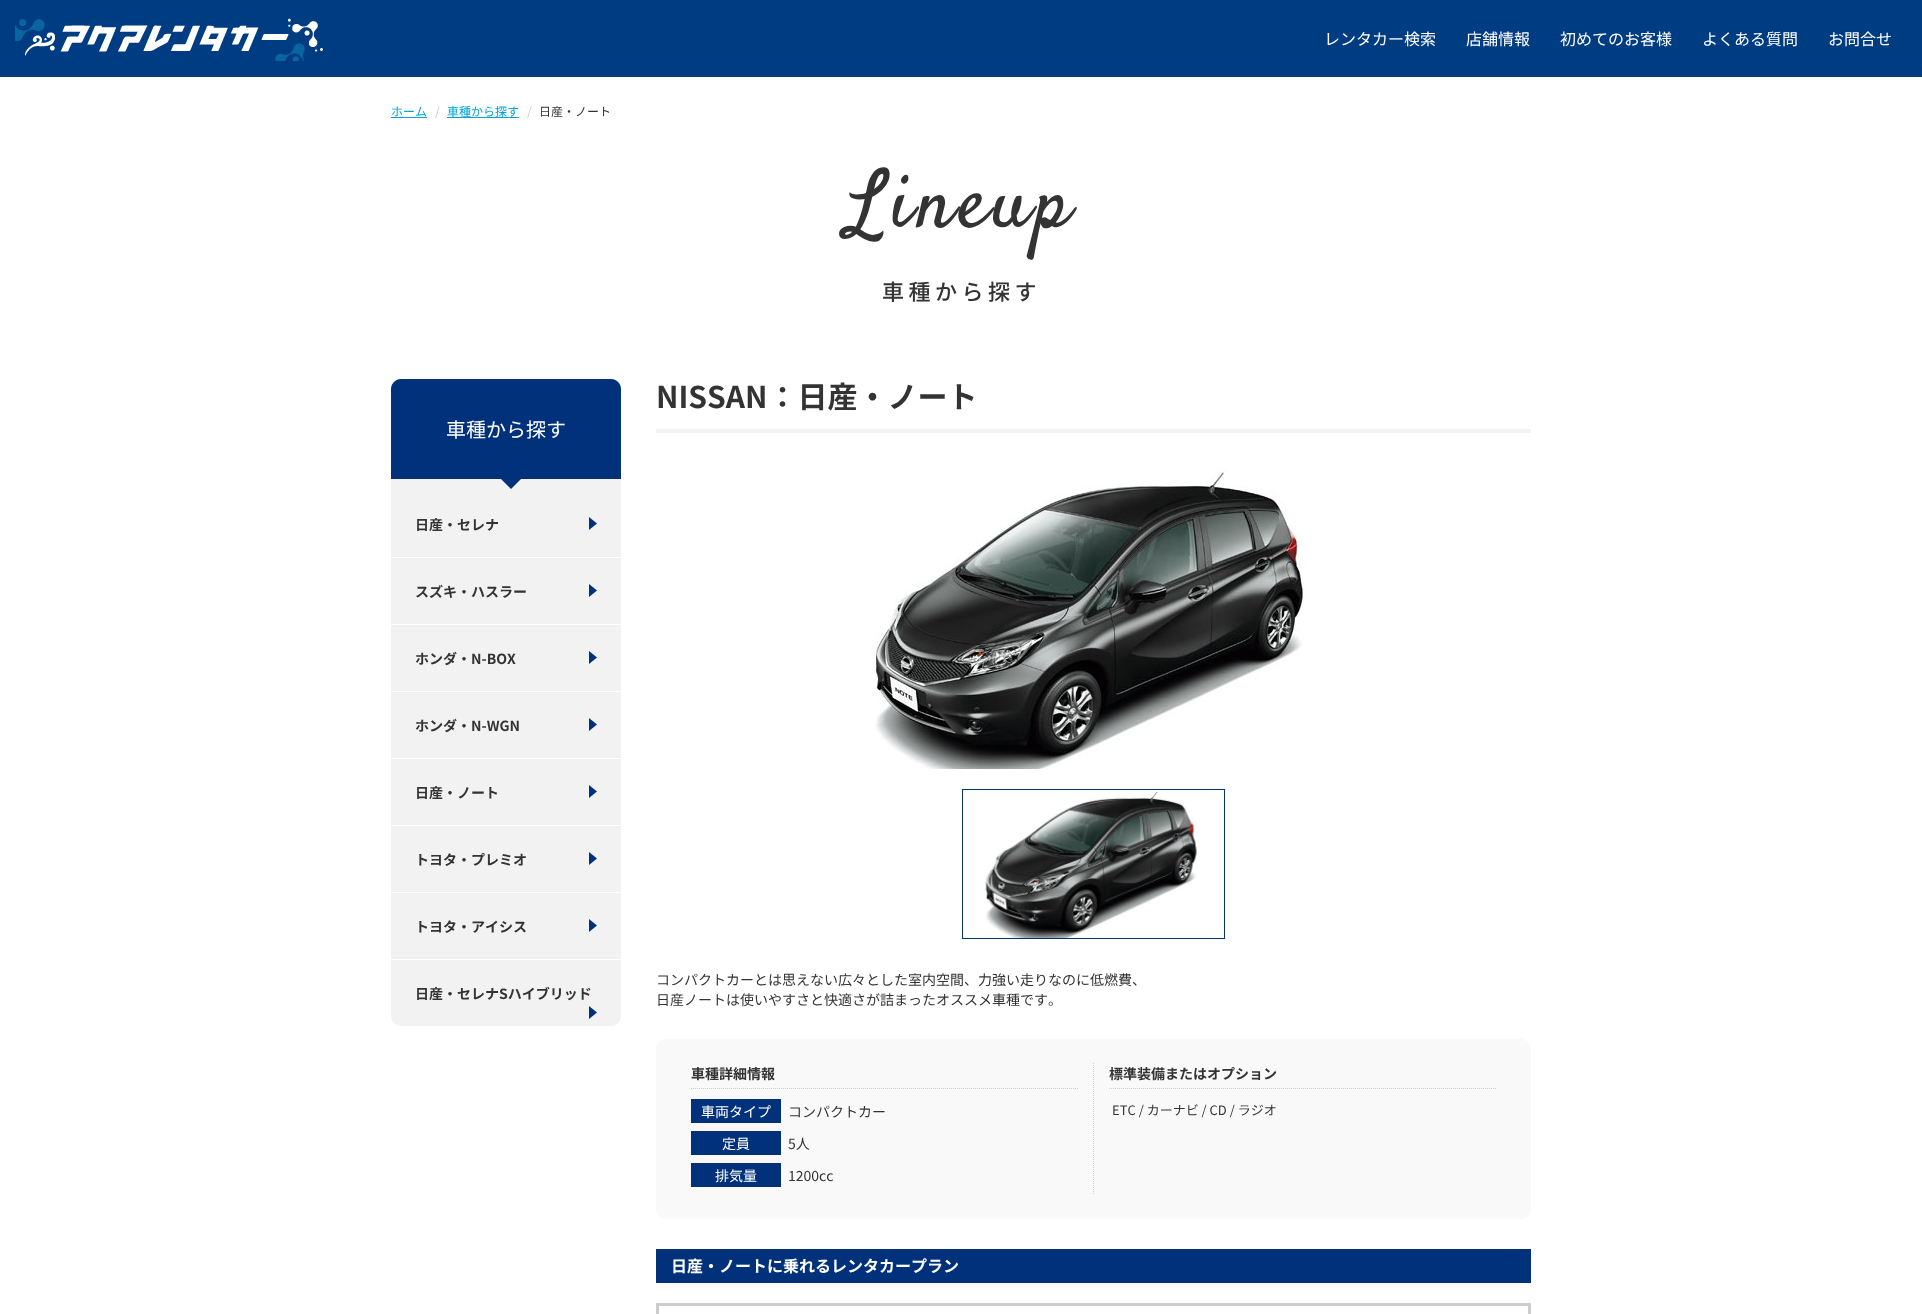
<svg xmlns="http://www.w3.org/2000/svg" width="1922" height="1314">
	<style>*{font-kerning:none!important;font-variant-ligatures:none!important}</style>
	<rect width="100%" height="100%" fill="#FFFFFF" />
	<rect x="0" y="0" width="1922" height="77" fill="#003C82" />
	<image x="15" y="18" width="308" height="43" href="assets/img1.png" />
	<g font-family="Noto Sans JP" font-size="16" fill="#FFFFFF">
		<text x="1324" y="45">レンタカー検索</text>
		<text x="1466" y="45">店舗情報</text>
		<text x="1560" y="45">初めてのお客様</text>
		<text x="1702" y="45">よくある質問</text>
		<text x="1828" y="45">お問合せ</text>
	</g>
	<text x="391" y="116" font-family="Noto Sans JP" font-size="12" fill="#00A5D6">ホーム</text>
	<rect x="391" y="117" width="36" height="1" fill="#00A5D6" />
	<text x="435" y="116" font-family="Noto Sans JP" font-size="12" fill="#CCCCCC">/</text>
	<text x="447" y="116" font-family="Noto Sans JP" font-size="12" fill="#00A5D6">車種から探す</text>
	<rect x="447" y="117" width="72" height="1" fill="#00A5D6" />
	<text x="527" y="116" font-family="Noto Sans JP" font-size="12" fill="#CCCCCC">/</text>
	<text x="539" y="116" font-family="Noto Sans JP" font-size="12" fill="#333333">日産・ノート</text>
	<text x="847" y="226" font-family="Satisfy" font-size="80" letter-spacing="4.5" fill="#333333">Lineup</text>
	<text x="882" y="300" font-family="Noto Sans JP" font-size="22" font-weight="500" letter-spacing="4.5" fill="#333333">車種から探す</text>
	<path d="M401 379H611C616.5 379 621 383.5 621 389V479H391V389C391 383.5 395.5 379 401 379Z" fill="#00317A" />
	<text x="446" y="437" font-family="Noto Sans JP" font-size="20" fill="#FFFFFF">車種から探す</text>
	<path d="M391 479H621V1016C621 1021.5 616.5 1026 611 1026H401C395.5 1026 391 1021.5 391 1016Z" fill="#F2F2F2" />
	<path d="M501 479H521L511 489Z" fill="#00317A" />
	<text x="415" y="530" font-family="Noto Sans JP" font-size="14" font-weight="700" fill="#333333">日産・セレナ</text>
	<image x="589" y="517" width="8" height="13" href="assets/img2.png" />
	<rect x="391" y="557" width="230" height="1" fill="#FFFFFF" />
	<text x="415" y="597" font-family="Noto Sans JP" font-size="14" font-weight="700" fill="#333333">スズキ・ハスラー</text>
	<image x="589" y="584" width="8" height="13" href="assets/img2.png" />
	<rect x="391" y="624" width="230" height="1" fill="#FFFFFF" />
	<text x="415" y="664" font-family="Noto Sans JP" font-size="14" font-weight="700" fill="#333333">ホンダ・N-BOX</text>
	<image x="589" y="651" width="8" height="13" href="assets/img2.png" />
	<rect x="391" y="691" width="230" height="1" fill="#FFFFFF" />
	<text x="415" y="731" font-family="Noto Sans JP" font-size="14" font-weight="700" fill="#333333">ホンダ・N-WGN</text>
	<image x="589" y="718" width="8" height="13" href="assets/img2.png" />
	<rect x="391" y="758" width="230" height="1" fill="#FFFFFF" />
	<text x="415" y="798" font-family="Noto Sans JP" font-size="14" font-weight="700" fill="#333333">日産・ノート</text>
	<image x="589" y="785" width="8" height="13" href="assets/img2.png" />
	<rect x="391" y="825" width="230" height="1" fill="#FFFFFF" />
	<text x="415" y="865" font-family="Noto Sans JP" font-size="14" font-weight="700" fill="#333333">トヨタ・プレミオ</text>
	<image x="589" y="852" width="8" height="13" href="assets/img2.png" />
	<rect x="391" y="892" width="230" height="1" fill="#FFFFFF" />
	<text x="415" y="932" font-family="Noto Sans JP" font-size="14" font-weight="700" fill="#333333">トヨタ・アイシス</text>
	<image x="589" y="919" width="8" height="13" href="assets/img2.png" />
	<rect x="391" y="959" width="230" height="1" fill="#FFFFFF" />
	<text x="415" y="999" font-family="Noto Sans JP" font-size="14" font-weight="700" fill="#333333">日産・セレナSハイブリッド</text>
	<image x="589" y="1006" width="8" height="13" href="assets/img2.png" />
	<rect x="656" y="429" width="875" height="4" fill="#F2F2F2" />
	<text x="656" y="408" font-family="Noto Sans JP" font-size="30" font-weight="700" fill="#333333">NISSAN：日産・ノート</text>
	<image x="871" y="469" width="436" height="300" href="assets/img3.png" />
	<rect x="962.5" y="789.5" width="262" height="149" fill="none" stroke="#00317A" />
	<image x="985" y="791" width="212" height="147" href="assets/img4.png" />
	<g font-family="Noto Sans JP" font-size="14" fill="#333333">
		<text x="656" y="985">コンパクトカーとは思えない広々とした室内空間、力強い走りなのに低燃費、</text>
		<text x="656" y="1005">日産ノートは使いやすさと快適さが詰まったオススメ車種です。</text>
	</g>
	<rect x="656" y="1039" width="875" height="180" rx="10" fill="#F9F9F9" />
	<path d="M1093.5 1063V1195" fill="none" stroke="#CCCCCC" stroke-dasharray="1 1" />
	<path d="M691 1088.5H1078" fill="none" stroke="#CCCCCC" stroke-dasharray="1 1" />
	<text x="691" y="1079" font-family="Noto Sans JP" font-size="14" font-weight="700" fill="#333333">車種詳細情報</text>
	<rect x="691" y="1099" width="90" height="24" fill="#00317A" />
	<text x="701" y="1117" font-family="Noto Sans JP" font-size="14" fill="#FFFFFF">車両タイプ</text>
	<text x="788" y="1117" font-family="Noto Sans JP" font-size="14" fill="#333333">コンパクトカー</text>
	<rect x="691" y="1131" width="90" height="24" fill="#00317A" />
	<text x="722" y="1149" font-family="Noto Sans JP" font-size="14" fill="#FFFFFF">定員</text>
	<text x="788" y="1149" font-family="Noto Sans JP" font-size="14" fill="#333333">5人</text>
	<rect x="691" y="1163" width="90" height="24" fill="#00317A" />
	<text x="715" y="1181" font-family="Noto Sans JP" font-size="14" fill="#FFFFFF">排気量</text>
	<text x="788" y="1181" font-family="Noto Sans JP" font-size="14" fill="#333333">1200cc</text>
	<path d="M1109 1088.5H1496" fill="none" stroke="#CCCCCC" stroke-dasharray="1 1" />
	<text x="1109" y="1079" font-family="Noto Sans JP" font-size="14" font-weight="700" fill="#333333">標準装備またはオプション</text>
	<text x="1112" y="1115" font-family="Noto Sans JP" font-size="13" fill="#333333">ETC / カーナビ / CD / ラジオ</text>
	<rect x="656" y="1249" width="875" height="34" fill="#00317A" />
	<text x="671" y="1272" font-family="Noto Sans JP" font-size="16" font-weight="700" fill="#FFFFFF">日産・ノートに乗れるレンタカープラン</text>
	<rect x="657.5" y="1304.5" width="872" height="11" fill="none" stroke="#CCCCCC" stroke-width="3" />
</svg>
